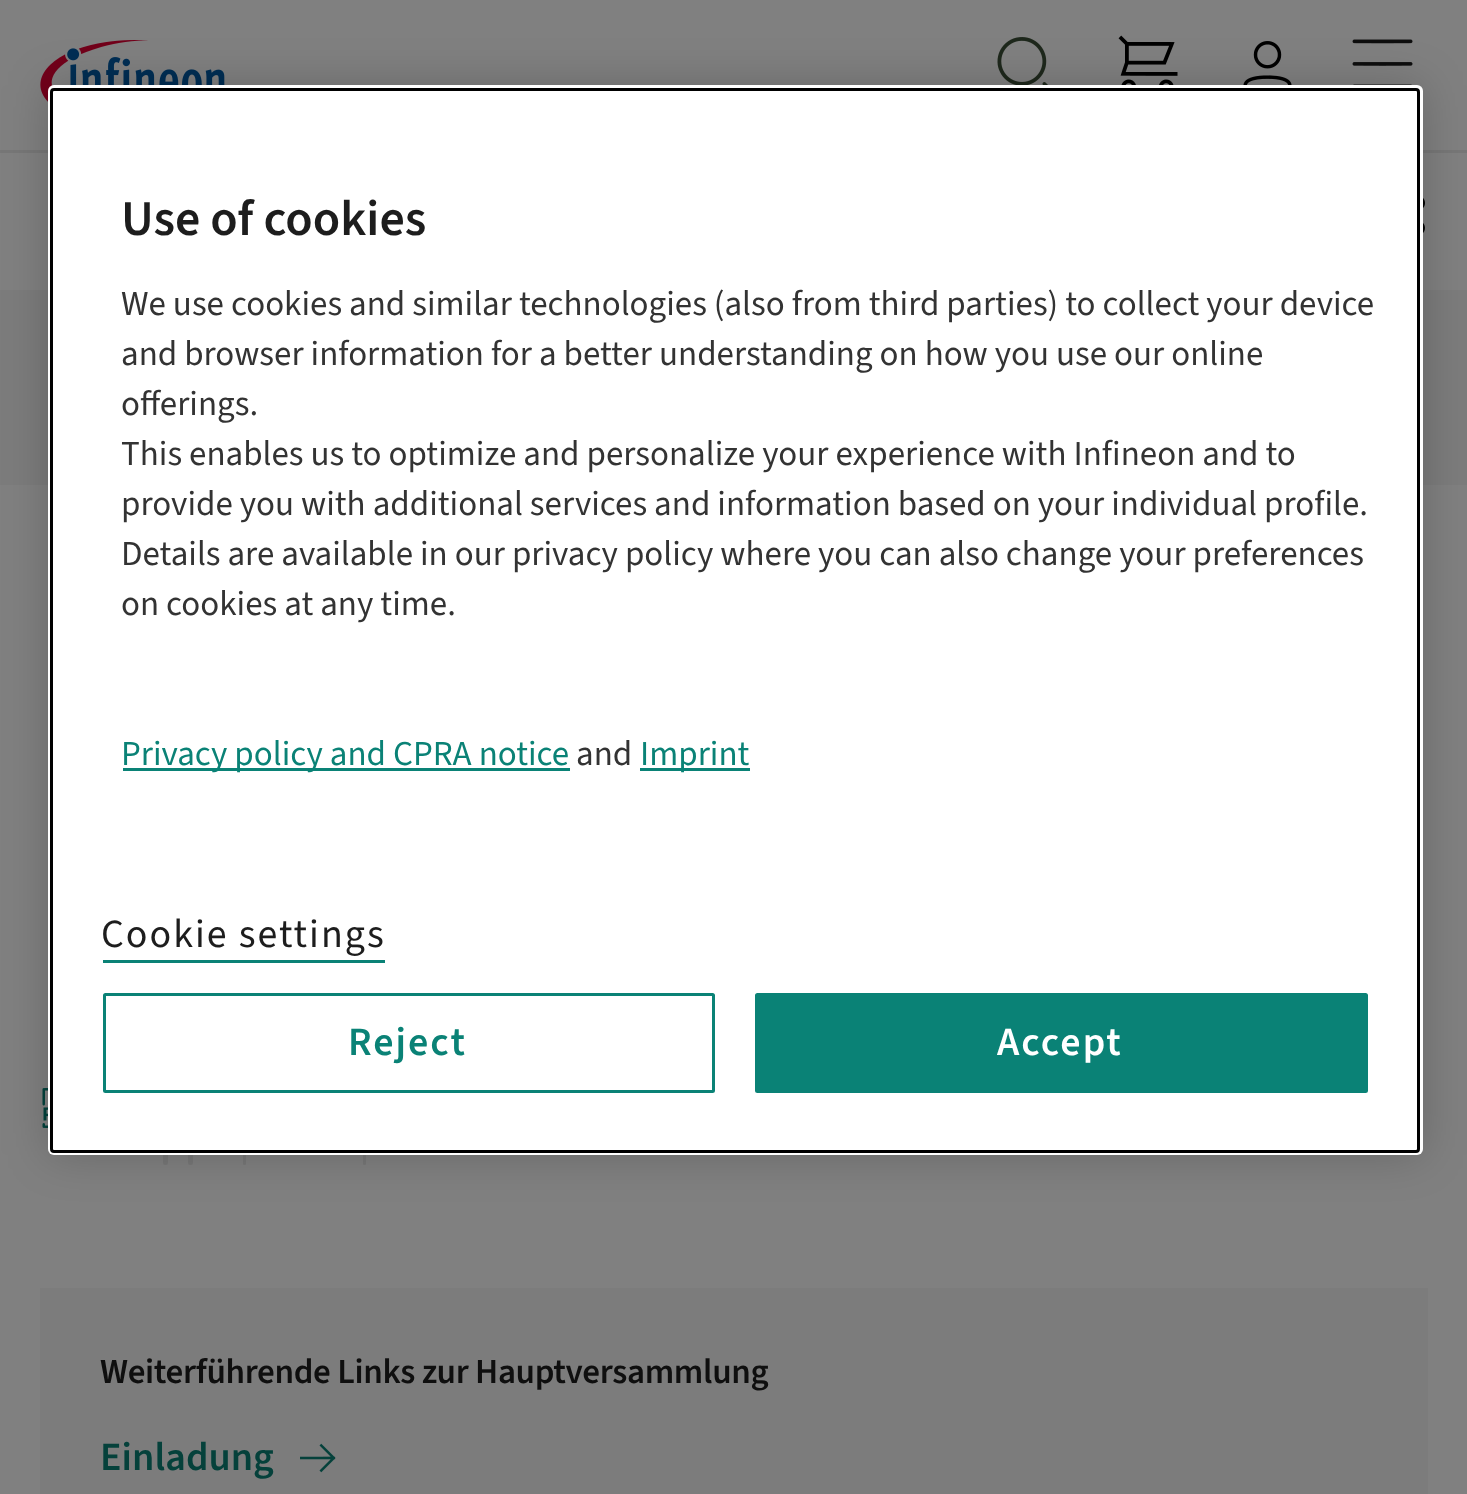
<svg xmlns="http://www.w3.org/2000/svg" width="1467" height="1494">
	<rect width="100%" height="100%" fill="#808080" />
	<rect x="0" y="150" width="1467" height="3" fill="#777777" />
	<image x="40" y="40" width="185" height="62" href="assets/img1.png" />
	<image x="997" y="37" width="51" height="48" href="assets/img2.png" />
	<image x="1118" y="35" width="60" height="50" href="assets/img3.png" />
	<image x="1243" y="41" width="49" height="44" href="assets/img4.png" />
	<image x="1352" y="39" width="61" height="46" href="assets/img5.png" />
	<image x="1423" y="198" width="2" height="35" href="assets/img6.png" />
	<rect x="0" y="290" width="1467" height="195" fill="#7C7C7C" />
	<image x="42" y="1088" width="6" height="40" href="assets/img7.png" />
	<rect x="163" y="1125" width="5" height="40" rx="2.5" fill="#777777" />
	<rect x="188" y="1125" width="5" height="40" rx="2.5" fill="#777777" />
	<rect x="243" y="1125" width="3" height="40" rx="1.5" fill="#777777" />
	<rect x="363" y="1125" width="3" height="40" rx="1.5" fill="#777777" />
	<rect x="48" y="85" width="1375" height="1070" rx="6" fill="#000000" fill-opacity="0.2" filter="blur(22.5px)" />
	<rect x="48" y="85" width="1375" height="1070" rx="6" fill="#FFFFFF" />
	<rect x="51.5" y="89.5" width="1367" height="1062" rx="2.5" fill="none" stroke="#000000" stroke-width="3" />
	<text x="121" y="235" font-family="'Source Sans 3'" font-size="50" font-weight="600" fill="#1D1D1D">Use of cookies</text>
	<g font-family="'Source Sans 3'" font-size="35" fill="#333333">
		<text x="121" y="315">We use cookies and similar technologies (also from third parties) to collect your device</text>
		<text x="121" y="365">and browser information for a better understanding on how you use our online</text>
		<text x="121" y="415">offerings.</text>
		<text x="121" y="465">This enables us to optimize and personalize your experience with Infineon and to</text>
		<text x="121" y="515">provide you with additional services and information based on your individual profile.</text>
		<text x="121" y="565">Details are available in our privacy policy where you can also change your preferences</text>
		<text x="121" y="615">on cookies at any time.</text>
	</g>
	<rect x="123" y="768" width="447" height="3" fill="#0A8276" />
	<text x="121" y="765" font-family="'Source Sans 3'" font-size="35" fill="#0A8276">Privacy policy and CPRA notice</text>
	<text x="576" y="765" font-family="'Source Sans 3'" font-size="35" fill="#333333">and</text>
	<rect x="640" y="768" width="110" height="3" fill="#0A8276" />
	<text x="640" y="765" font-family="'Source Sans 3'" font-size="35" fill="#0A8276">Imprint</text>
	<text x="101" y="947" font-family="'Source Sans 3'" font-size="40" letter-spacing="2" fill="#1D1D1D">Cookie settings</text>
	<rect x="103" y="960" width="282" height="3" fill="#0A8276" />
	<rect x="104.5" y="994.5" width="609" height="97" rx="1" fill="none" stroke="#0A8276" stroke-width="3" />
	<text x="348" y="1055" font-family="'Source Sans 3'" font-size="40" font-weight="600" letter-spacing="2" fill="#0A8276">Reject</text>
	<rect x="756.5" y="994.5" width="610" height="97" rx="1" fill="#0A8276" stroke="#0A8276" stroke-width="3" />
	<text x="997" y="1055" font-family="'Source Sans 3'" font-size="40" font-weight="600" letter-spacing="2" fill="#FFFFFF">Accept</text>
	<rect x="40" y="1288" width="1388" height="206" fill="#7C7C7C" />
	<text x="100" y="1383" font-family="'Source Sans 3'" font-size="35" font-weight="600" letter-spacing="-0.35" fill="#0F0F0F">Weiterführende Links zur Hauptversammlung</text>
	<text x="100" y="1470" font-family="'Source Sans 3'" font-size="40" font-weight="600" fill="#05413B">Einladung</text>
	<image x="300" y="1443" width="36" height="30" href="assets/img8.png" />
</svg>
